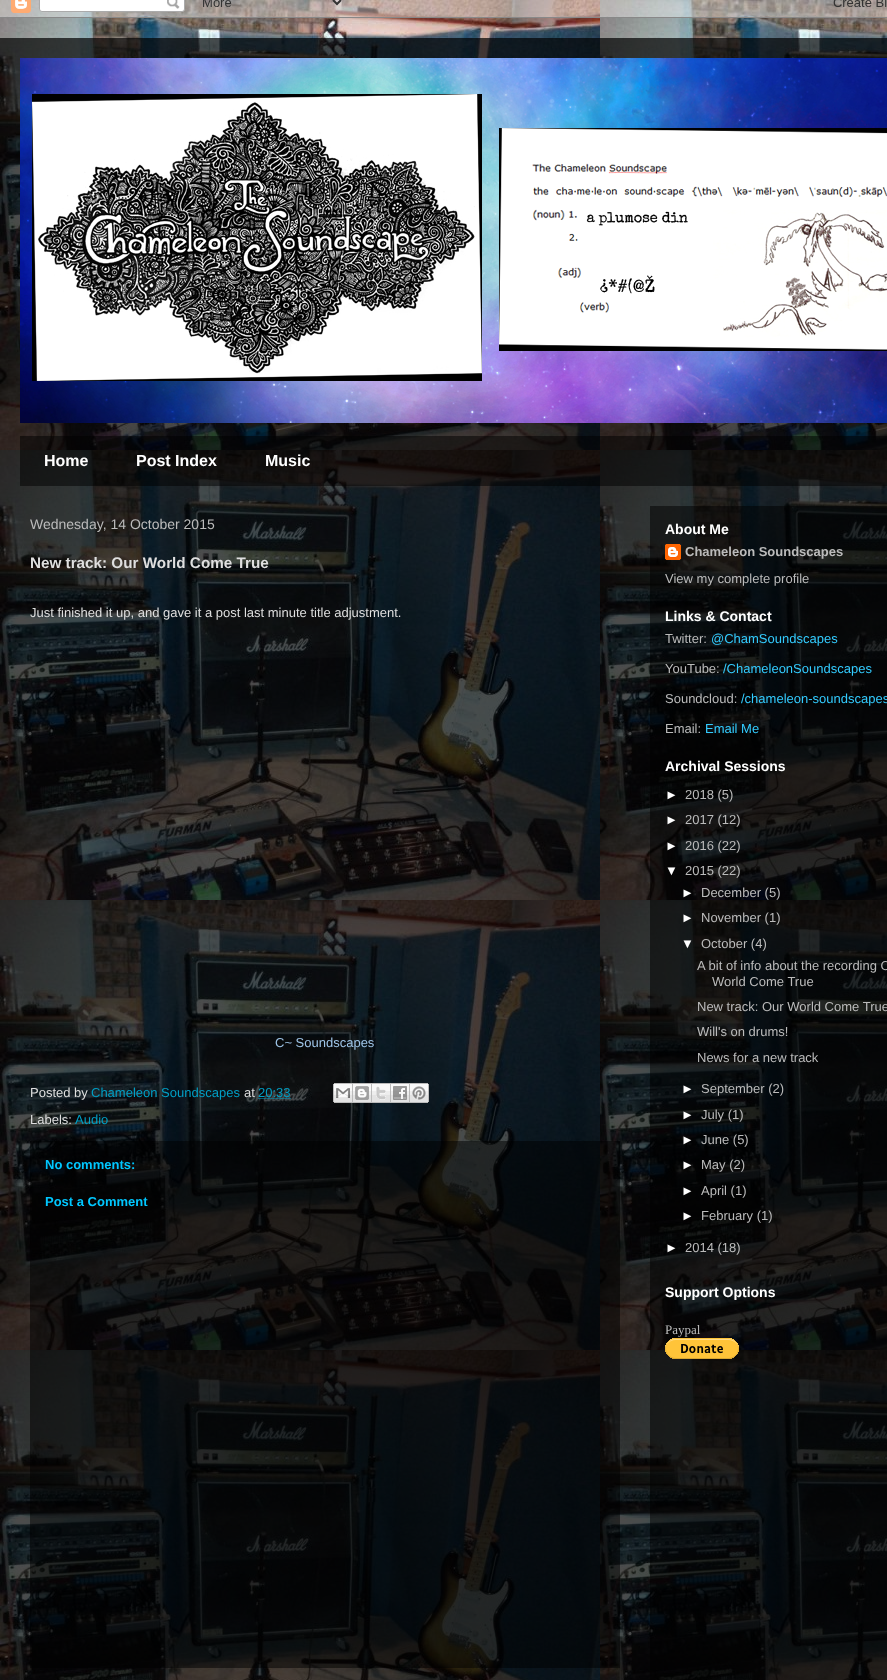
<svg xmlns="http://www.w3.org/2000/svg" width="887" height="1680">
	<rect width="100%" height="100%" fill="#FFFFFF" />
	<image x="0" y="0" width="887" height="1680" href="assets/img1.png" />
	<image x="0" y="0" width="887" height="18" href="assets/img2.png" />
	<image x="20" y="58" width="867" height="365" href="assets/img3.png" />
	<rect x="20" y="436" width="867" height="50" fill="#000000" fill-opacity="0.5" />
	<g font-family="Liberation Sans" font-size="16" font-weight="700" fill="#FFFFFF">
		<text x="44" y="466">Home</text>
		<text x="136" y="466">Post Index</text>
		<text x="265" y="466">Music</text>
	</g>
	<rect x="650" y="506" width="237" height="1174" fill="#000000" fill-opacity="0.5" />
	<text x="30" y="529" font-family="Liberation Sans" font-size="14" fill="#BBBBBB">Wednesday, 14 October 2015</text>
	<text x="30" y="568" font-family="Liberation Sans" font-size="15.25" font-weight="700" fill="#DFDFDF">New track: Our World Come True</text>
	<text x="30" y="617" font-family="Liberation Sans" font-size="13" fill="#DFDFDF">Just finished it up, and gave it a post last minute title adjustment.</text>
	<text x="275" y="1047" font-family="Liberation Sans" font-size="13" fill="#9FC5E8">C~ Soundscapes</text>
	<text x="30" y="1097" font-family="Liberation Sans" font-size="13" fill="#DFDFDF">Posted by</text>
	<text x="91" y="1097" font-family="Liberation Sans" font-size="13" fill="#009FC5">Chameleon Soundscapes</text>
	<text x="244" y="1097" font-family="Liberation Sans" font-size="13" fill="#DFDFDF">at</text>
	<text x="258" y="1097" font-family="Liberation Sans" font-size="13" fill="#009FC5">20:33</text>
	<path d="M258.5 1098.5H291" fill="none" stroke="#009FC5" stroke-dasharray="1 1" />
	<image x="333" y="1083" width="20" height="20" href="assets/img4.png" />
	<image x="353" y="1083" width="19" height="20" href="assets/img5.png" />
	<image x="372" y="1083" width="19" height="20" href="assets/img6.png" />
	<image x="391" y="1083" width="19" height="20" href="assets/img7.png" />
	<image x="410" y="1083" width="19" height="20" href="assets/img8.png" />
	<text x="30" y="1124" font-family="Liberation Sans" font-size="13" fill="#DFDFDF">Labels:</text>
	<text x="75" y="1124" font-family="Liberation Sans" font-size="13" fill="#009FC5">Audio</text>
	<rect x="30" y="1141" width="590" height="527" fill="#000000" fill-opacity="0.5" />
	<g font-family="Liberation Sans" font-size="13" font-weight="700" fill="#00C7FF">
		<text x="45" y="1169">No comments:</text>
		<text x="45" y="1206">Post a Comment</text>
	</g>
	<text x="665" y="534" font-family="Liberation Sans" font-size="14" font-weight="700" fill="#FFFFFF">About Me</text>
	<image x="665" y="544" width="16" height="16" href="assets/img9.png" />
	<text x="685" y="556" font-family="Liberation Sans" font-size="13" font-weight="700" fill="#BBBBBB">Chameleon Soundscapes</text>
	<text x="665" y="583" font-family="Liberation Sans" font-size="13" fill="#BBBBBB">View my complete profile</text>
	<text x="665" y="621" font-family="Liberation Sans" font-size="14" font-weight="700" fill="#FFFFFF">Links &amp; Contact</text>
	<text x="665" y="643" font-family="Liberation Sans" font-size="13" fill="#BBBBBB">Twitter:</text>
	<text x="711" y="643" font-family="Liberation Sans" font-size="13" fill="#33CCFF">@ChamSoundscapes</text>
	<text x="665" y="673" font-family="Liberation Sans" font-size="13" fill="#BBBBBB">YouTube:</text>
	<text x="723" y="673" font-family="Liberation Sans" font-size="13" fill="#33CCFF">/ChameleonSoundscapes</text>
	<text x="665" y="703" font-family="Liberation Sans" font-size="13" fill="#BBBBBB">Soundcloud:</text>
	<text x="741" y="703" font-family="Liberation Sans" font-size="13" fill="#33CCFF">/chameleon-soundscapes</text>
	<text x="665" y="733" font-family="Liberation Sans" font-size="13" fill="#BBBBBB">Email:</text>
	<text x="705" y="733" font-family="Liberation Sans" font-size="13" fill="#33CCFF">Email Me</text>
	<text x="665" y="771" font-family="Liberation Sans" font-size="14" font-weight="700" fill="#FFFFFF">Archival Sessions</text>
	<text x="665" y="799" font-family="Liberation Sans" font-size="13" fill="#FFFFFF">►</text>
	<text x="685" y="799" font-family="Liberation Sans" font-size="13" fill="#BBBBBB">2018 (5)</text>
	<text x="665" y="824" font-family="Liberation Sans" font-size="13" fill="#FFFFFF">►</text>
	<text x="685" y="824" font-family="Liberation Sans" font-size="13" fill="#BBBBBB">2017 (12)</text>
	<text x="665" y="850" font-family="Liberation Sans" font-size="13" fill="#FFFFFF">►</text>
	<text x="685" y="850" font-family="Liberation Sans" font-size="13" fill="#BBBBBB">2016 (22)</text>
	<text x="665" y="875" font-family="Liberation Sans" font-size="13" fill="#FFFFFF">▼</text>
	<text x="685" y="875" font-family="Liberation Sans" font-size="13" fill="#BBBBBB">2015 (22)</text>
	<text x="681" y="897" font-family="Liberation Sans" font-size="13" fill="#FFFFFF">►</text>
	<text x="701" y="897" font-family="Liberation Sans" font-size="13" fill="#BBBBBB">December (5)</text>
	<text x="681" y="922" font-family="Liberation Sans" font-size="13" fill="#FFFFFF">►</text>
	<text x="701" y="922" font-family="Liberation Sans" font-size="13" fill="#BBBBBB">November (1)</text>
	<text x="681" y="948" font-family="Liberation Sans" font-size="13" fill="#FFFFFF">▼</text>
	<g font-family="Liberation Sans" font-size="13" fill="#BBBBBB">
		<text x="701" y="948">October (4)</text>
		<text x="697" y="970">A bit of info about the recording O</text>
		<text x="712" y="986">World Come True</text>
		<text x="697" y="1011">New track: Our World Come True</text>
		<text x="697" y="1036">Will's on drums!</text>
		<text x="697" y="1062">News for a new track</text>
	</g>
	<text x="681" y="1093" font-family="Liberation Sans" font-size="13" fill="#FFFFFF">►</text>
	<text x="701" y="1093" font-family="Liberation Sans" font-size="13" fill="#BBBBBB">September (2)</text>
	<text x="681" y="1119" font-family="Liberation Sans" font-size="13" fill="#FFFFFF">►</text>
	<text x="701" y="1119" font-family="Liberation Sans" font-size="13" fill="#BBBBBB">July (1)</text>
	<text x="681" y="1144" font-family="Liberation Sans" font-size="13" fill="#FFFFFF">►</text>
	<text x="701" y="1144" font-family="Liberation Sans" font-size="13" fill="#BBBBBB">June (5)</text>
	<text x="681" y="1169" font-family="Liberation Sans" font-size="13" fill="#FFFFFF">►</text>
	<text x="701" y="1169" font-family="Liberation Sans" font-size="13" fill="#BBBBBB">May (2)</text>
	<text x="681" y="1195" font-family="Liberation Sans" font-size="13" fill="#FFFFFF">►</text>
	<text x="701" y="1195" font-family="Liberation Sans" font-size="13" fill="#BBBBBB">April (1)</text>
	<text x="681" y="1220" font-family="Liberation Sans" font-size="13" fill="#FFFFFF">►</text>
	<text x="701" y="1220" font-family="Liberation Sans" font-size="13" fill="#BBBBBB">February (1)</text>
	<text x="665" y="1252" font-family="Liberation Sans" font-size="13" fill="#FFFFFF">►</text>
	<text x="685" y="1252" font-family="Liberation Sans" font-size="13" fill="#BBBBBB">2014 (18)</text>
	<text x="665" y="1297" font-family="Liberation Sans" font-size="14" font-weight="700" fill="#FFFFFF">Support Options</text>
	<text x="665" y="1334" font-family="Liberation Serif" font-size="13" fill="#BBBBBB">Paypal</text>
	<image x="665" y="1338" width="74" height="21" href="assets/img10.png" />
</svg>
